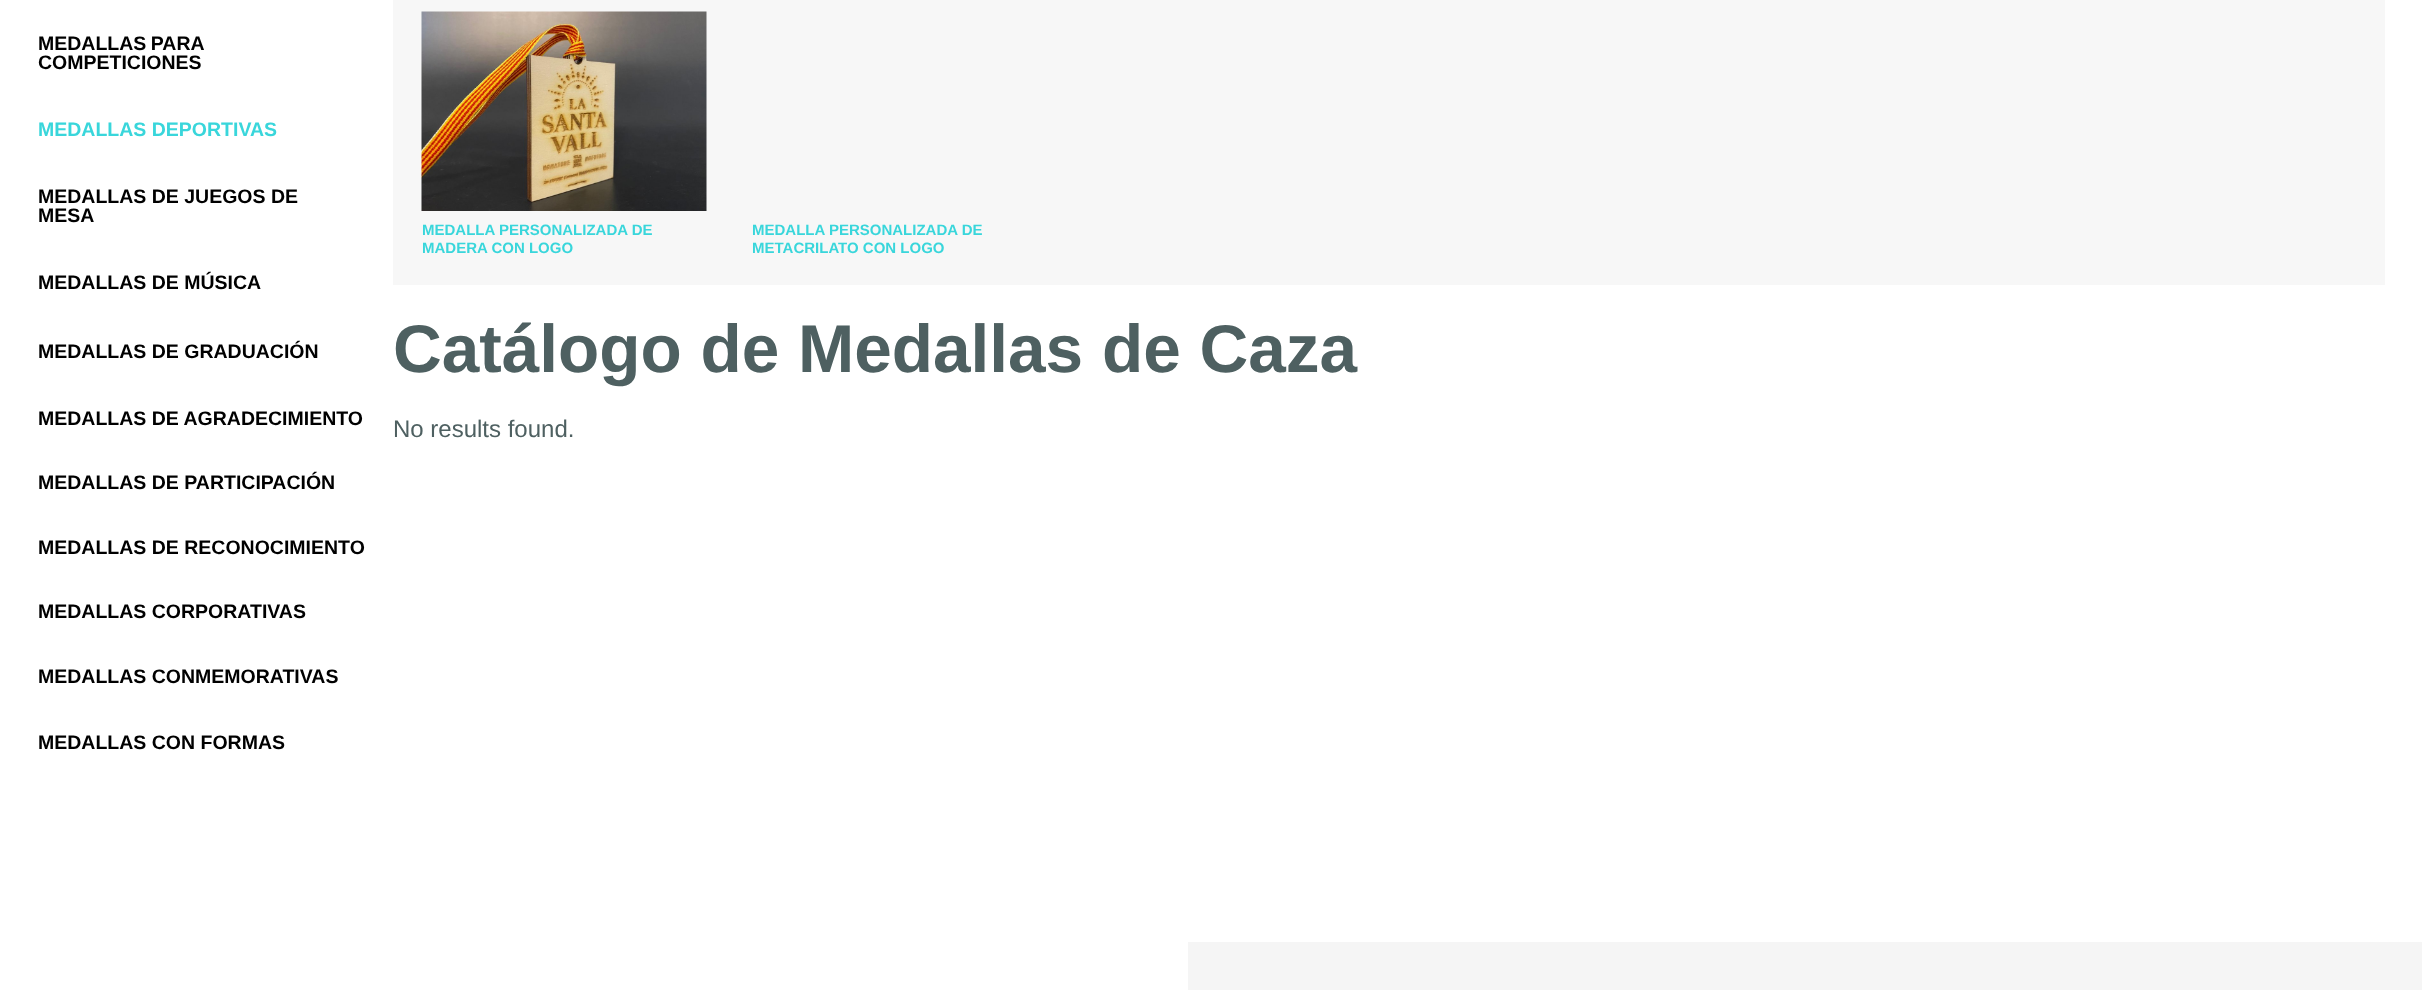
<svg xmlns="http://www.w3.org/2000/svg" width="2422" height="990">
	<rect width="100%" height="100%" fill="#FFFFFF" />
	<g font-family="Liberation Sans" font-size="19.5" font-weight="700" fill="#000000">
		<text x="38" y="50" word-spacing="-1">MEDALLAS PARA</text>
		<text x="38" y="69">COMPETICIONES</text>
	</g>
	<text x="38" y="136" font-family="Liberation Sans" font-size="19.5" font-weight="700" fill="#39D6DB">MEDALLAS DEPORTIVAS</text>
	<g font-family="Liberation Sans" font-size="19.5" font-weight="700" fill="#000000">
		<text x="38" y="203">MEDALLAS DE JUEGOS DE</text>
		<text x="38" y="222">MESA</text>
		<text x="38" y="289">MEDALLAS DE MÚSICA</text>
		<text x="38" y="358">MEDALLAS DE GRADUACIÓN</text>
		<text x="38" y="425">MEDALLAS DE AGRADECIMIENTO</text>
		<text x="38" y="489">MEDALLAS DE PARTICIPACIÓN</text>
		<text x="38" y="554">MEDALLAS DE RECONOCIMIENTO</text>
		<text x="38" y="618">MEDALLAS CORPORATIVAS</text>
		<text x="38" y="683">MEDALLAS CONMEMORATIVAS</text>
		<text x="38" y="749">MEDALLAS CON FORMAS</text>
	</g>
	<rect x="393" y="0" width="1992" height="285" fill="#F7F7F7" />
	<image x="421" y="11" width="286" height="200" href="assets/img1.png" />
	<g font-family="Liberation Sans" font-size="15" font-weight="700" fill="#39D6DB">
		<text x="422" y="235">MEDALLA PERSONALIZADA DE</text>
		<text x="422" y="253">MADERA CON LOGO</text>
		<text x="752" y="235">MEDALLA PERSONALIZADA DE</text>
		<text x="752" y="253">METACRILATO CON LOGO</text>
	</g>
	<text x="393" y="372" font-family="Liberation Sans" font-size="67.5" font-weight="700" fill="#4E6061">Catálogo de Medallas de Caza</text>
	<text x="393" y="437" font-family="Liberation Sans" font-size="24" fill="#4E6061">No results found.</text>
	<rect x="1188" y="942" width="1234" height="48" fill="#F5F5F5" />
</svg>
